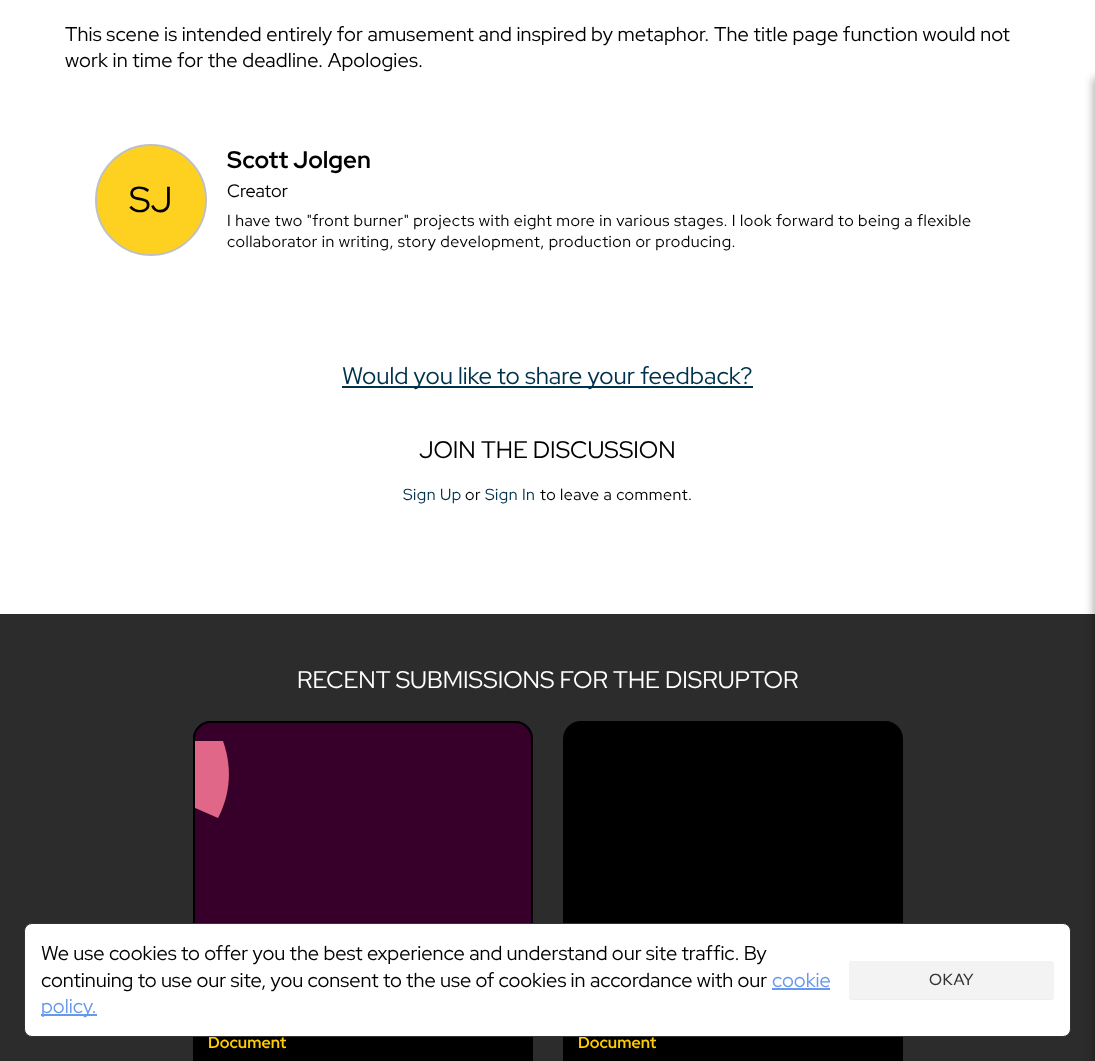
<svg xmlns="http://www.w3.org/2000/svg" width="1095" height="1061">
	<rect width="100%" height="100%" fill="#FFFFFF" />
	<g font-family="Red Hat Display" font-size="20" letter-spacing="0.15" fill="#000000">
		<text x="65" y="41">This scene is intended entirely for amusement and inspired by metaphor. The title page function would not</text>
		<text x="65" y="67">work in time for the deadline. Apologies.</text>
	</g>
	<circle cx="151" cy="200" r="55" fill="#FED120" stroke="#C0C0C0" stroke-width="2" />
	<text x="129" y="212" font-family="Red Hat Display" font-size="36" fill="#000000">SJ</text>
	<text x="227" y="168" font-family="Red Hat Display" font-size="24" font-weight="700" fill="#000000">Scott Jolgen</text>
	<text x="227" y="197" font-family="Red Hat Display" font-size="18" fill="#000000">Creator</text>
	<g font-family="Red Hat Display" font-size="16" letter-spacing="0.5" fill="#000000">
		<text x="227" y="226">I have two "front burner" projects with eight more in various stages. I look forward to being a flexible</text>
		<text x="227" y="247">collaborator in writing, story development, production or producing.</text>
	</g>
	<rect x="342" y="386" width="411" height="2" fill="#00324B" />
	<text x="342" y="384" font-family="Red Hat Display" font-size="24" fill="#00324B">Would you like to share your feedback?</text>
	<text x="419" y="458" font-family="Red Hat Display" font-size="24" fill="#000000">JOIN THE DISCUSSION</text>
	<text x="403" y="500" font-family="Red Hat Display" font-size="16" letter-spacing="0.5" fill="#00324B">Sign Up</text>
	<text x="465" y="500" font-family="Red Hat Display" font-size="16" letter-spacing="0.5" fill="#000000">or</text>
	<text x="485" y="500" font-family="Red Hat Display" font-size="16" letter-spacing="0.5" fill="#00324B">Sign In</text>
	<text x="540" y="500" font-family="Red Hat Display" font-size="16" letter-spacing="0.5" fill="#000000">to leave a comment.</text>
	<rect x="0" y="614" width="1095" height="447" fill="#2C2C2C" />
	<text x="297" y="688" font-family="Red Hat Display" font-size="24" fill="#FFFFFF">RECENT SUBMISSIONS FOR THE DISRUPTOR</text>
	<rect x="193" y="721" width="340" height="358" rx="18" fill="#000000" />
	<path d="M211 721H515C525 721 533 729 533 739V1021H193V739C193 729 201 721 211 721Z" fill="#36002A" />
	<path d="M193 807V741H223C232 766 231 793 218 818Z" fill="#E06788" />
	<path d="M211 721H515C525 721 533 729 533 739V1021H193V739C193 729 201 721 211 721ZM211 723H515C524 723 531 730 531 739V1021H195V739C195 730 202 723 211 723Z" fill="#000000" fill-rule="evenodd" />
	<text x="208" y="1048" font-family="Red Hat Display" font-size="16" font-weight="700" fill="#FFCC00">Document</text>
	<rect x="563" y="721" width="340" height="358" rx="18" fill="#000000" />
	<text x="578" y="1048" font-family="Red Hat Display" font-size="16" font-weight="700" fill="#FFCC00">Document</text>
	<rect x="1093" y="78" width="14" height="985" fill="#000000" fill-opacity="0.3" filter="blur(4px)" />
	<rect x="24.5" y="923.5" width="1046" height="113" rx="7.5" fill="#FFFFFF" stroke="#333333" />
	<g font-family="Red Hat Display" font-size="20" fill="#000000">
		<text x="41" y="960">We use cookies to offer you the best experience and understand our site traffic. By</text>
		<text x="41" y="987">continuing to use our site, you consent to the use of cookies in accordance with our</text>
	</g>
	<text x="772" y="987" font-family="Red Hat Display" font-size="20" fill="#6699EE">cookie</text>
	<rect x="772" y="988" width="58" height="2" fill="#6699EE" />
	<rect x="41" y="1014" width="56" height="2" fill="#6699EE" />
	<text x="41" y="1013" font-family="Red Hat Display" font-size="20" fill="#6699EE">policy.</text>
	<rect x="849" y="962" width="205" height="38" rx="3" fill="#000000" fill-opacity="0.07" filter="blur(0.5px)" />
	<rect x="849" y="961" width="205" height="38" rx="3" fill="#F4F3F3" />
	<text x="929" y="985" font-family="Red Hat Display" font-size="16" font-weight="500" letter-spacing="0.5" fill="#333333">OKAY</text>
</svg>
